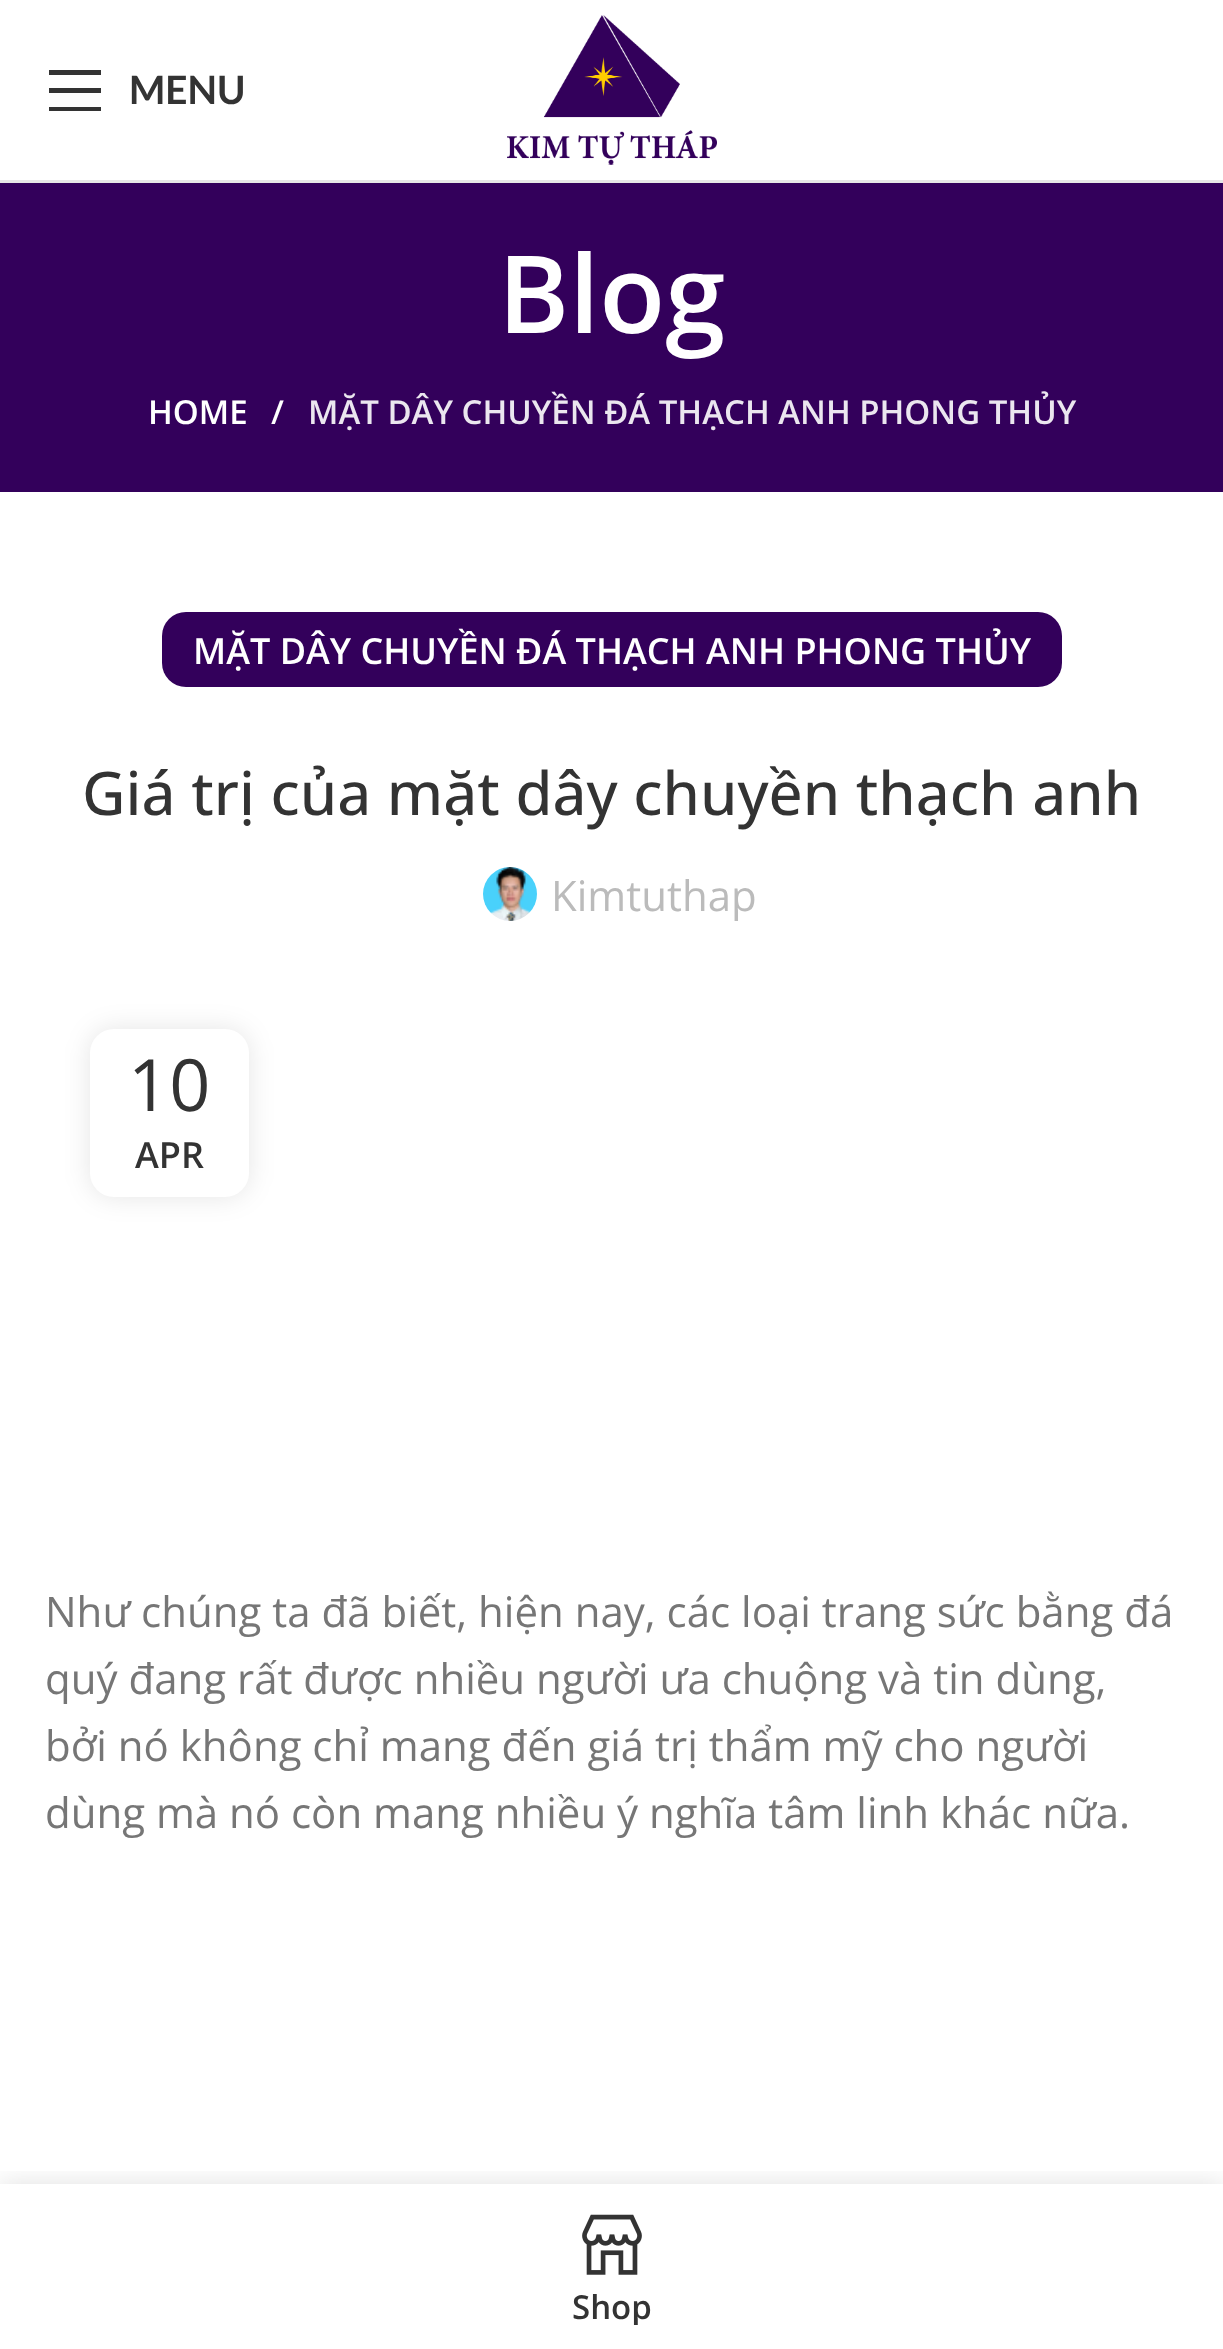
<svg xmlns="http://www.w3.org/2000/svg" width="1223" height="2349">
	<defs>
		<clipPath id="clip1"><rect x="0" y="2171" width="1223" height="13" /></clipPath>
		<clipPath id="clip2"><rect x="45" y="2286" width="1134" height="39" /></clipPath>
	</defs>
	<rect width="100%" height="100%" fill="#FFFFFF" />
	<rect x="0" y="180" width="1223" height="3" fill="#E6E6E6" />
	<path d="M49 75H101V70H49ZM49 93H101V88H49ZM49 111H101V107H49Z" fill="#333333" />
	<text x="129" y="104" font-family="Lato" font-size="39" font-weight="700" fill="#333333">MENU</text>
	<image x="507" y="15" width="210" height="150" href="assets/img1.png" />
	<rect x="0" y="183" width="1223" height="309" fill="#33005B" />
	<text x="498" y="333" font-family="Open Sans" font-size="108" font-weight="600" fill="#FFFFFF">Blog</text>
	<g font-family="Open Sans" font-size="33" font-weight="600" fill="#FFFFFF">
		<text x="148" y="424">HOME</text>
		<text x="271" y="424">/</text>
	</g>
	<text x="308" y="424" font-family="Open Sans" font-size="33" font-weight="600" fill="#EBE6EF">MẶT DÂY CHUYỀN ĐÁ THẠCH ANH PHONG THỦY</text>
	<rect x="162" y="612" width="900" height="75" rx="24" fill="#33005B" />
	<text x="193" y="664" font-family="Open Sans" font-size="36" font-weight="600" fill="#FFFFFF">MẶT DÂY CHUYỀN ĐÁ THẠCH ANH PHONG THỦY</text>
	<text x="82" y="815" font-family="Open Sans" font-size="60" font-weight="500" fill="#333333">Giá trị của mặt dây chuyền thạch anh</text>
	<image x="483" y="867" width="54" height="54" href="assets/img2.png" />
	<text x="551" y="911" font-family="Open Sans" font-size="42" fill="#BBBBBB">Kimtuthap</text>
	<rect x="90" y="1029" width="159" height="168" rx="24" fill="#000000" fill-opacity="0.1" filter="blur(13.5px)" />
	<rect x="90" y="1029" width="159" height="168" rx="24" fill="#FFFFFF" />
	<text x="128" y="1111" font-family="Open Sans" font-size="72" fill="#333333">10</text>
	<text x="135" y="1168" font-family="Open Sans" font-size="36" font-weight="600" fill="#333333">APR</text>
	<g font-family="Open Sans" font-size="42" fill="#767676">
		<text x="45" y="1627">Như chúng ta đã biết, hiện nay, các loại trang sức bằng đá</text>
		<text x="45" y="1694">quý đang rất được nhiều người ưa chuộng và tin dùng,</text>
		<text x="45" y="1761">bởi nó không chỉ mang đến giá trị thẩm mỹ cho người</text>
		<text x="45" y="1828">dùng mà nó còn mang nhiều ý nghĩa tâm linh khác nữa.</text>
	</g>
	<g clip-path="url(#clip1)">
		<rect x="0" y="2184" width="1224" height="165" fill="#000000" fill-opacity="0.12" filter="blur(13.5px)" />
	</g>
	<image x="582" y="2214" width="60" height="61" href="assets/img3.png" />
	<g clip-path="url(#clip2)">
		<text x="572" y="2319" font-family="Open Sans" font-size="33" font-weight="600" fill="#333333">Shop</text>
	</g>
</svg>
